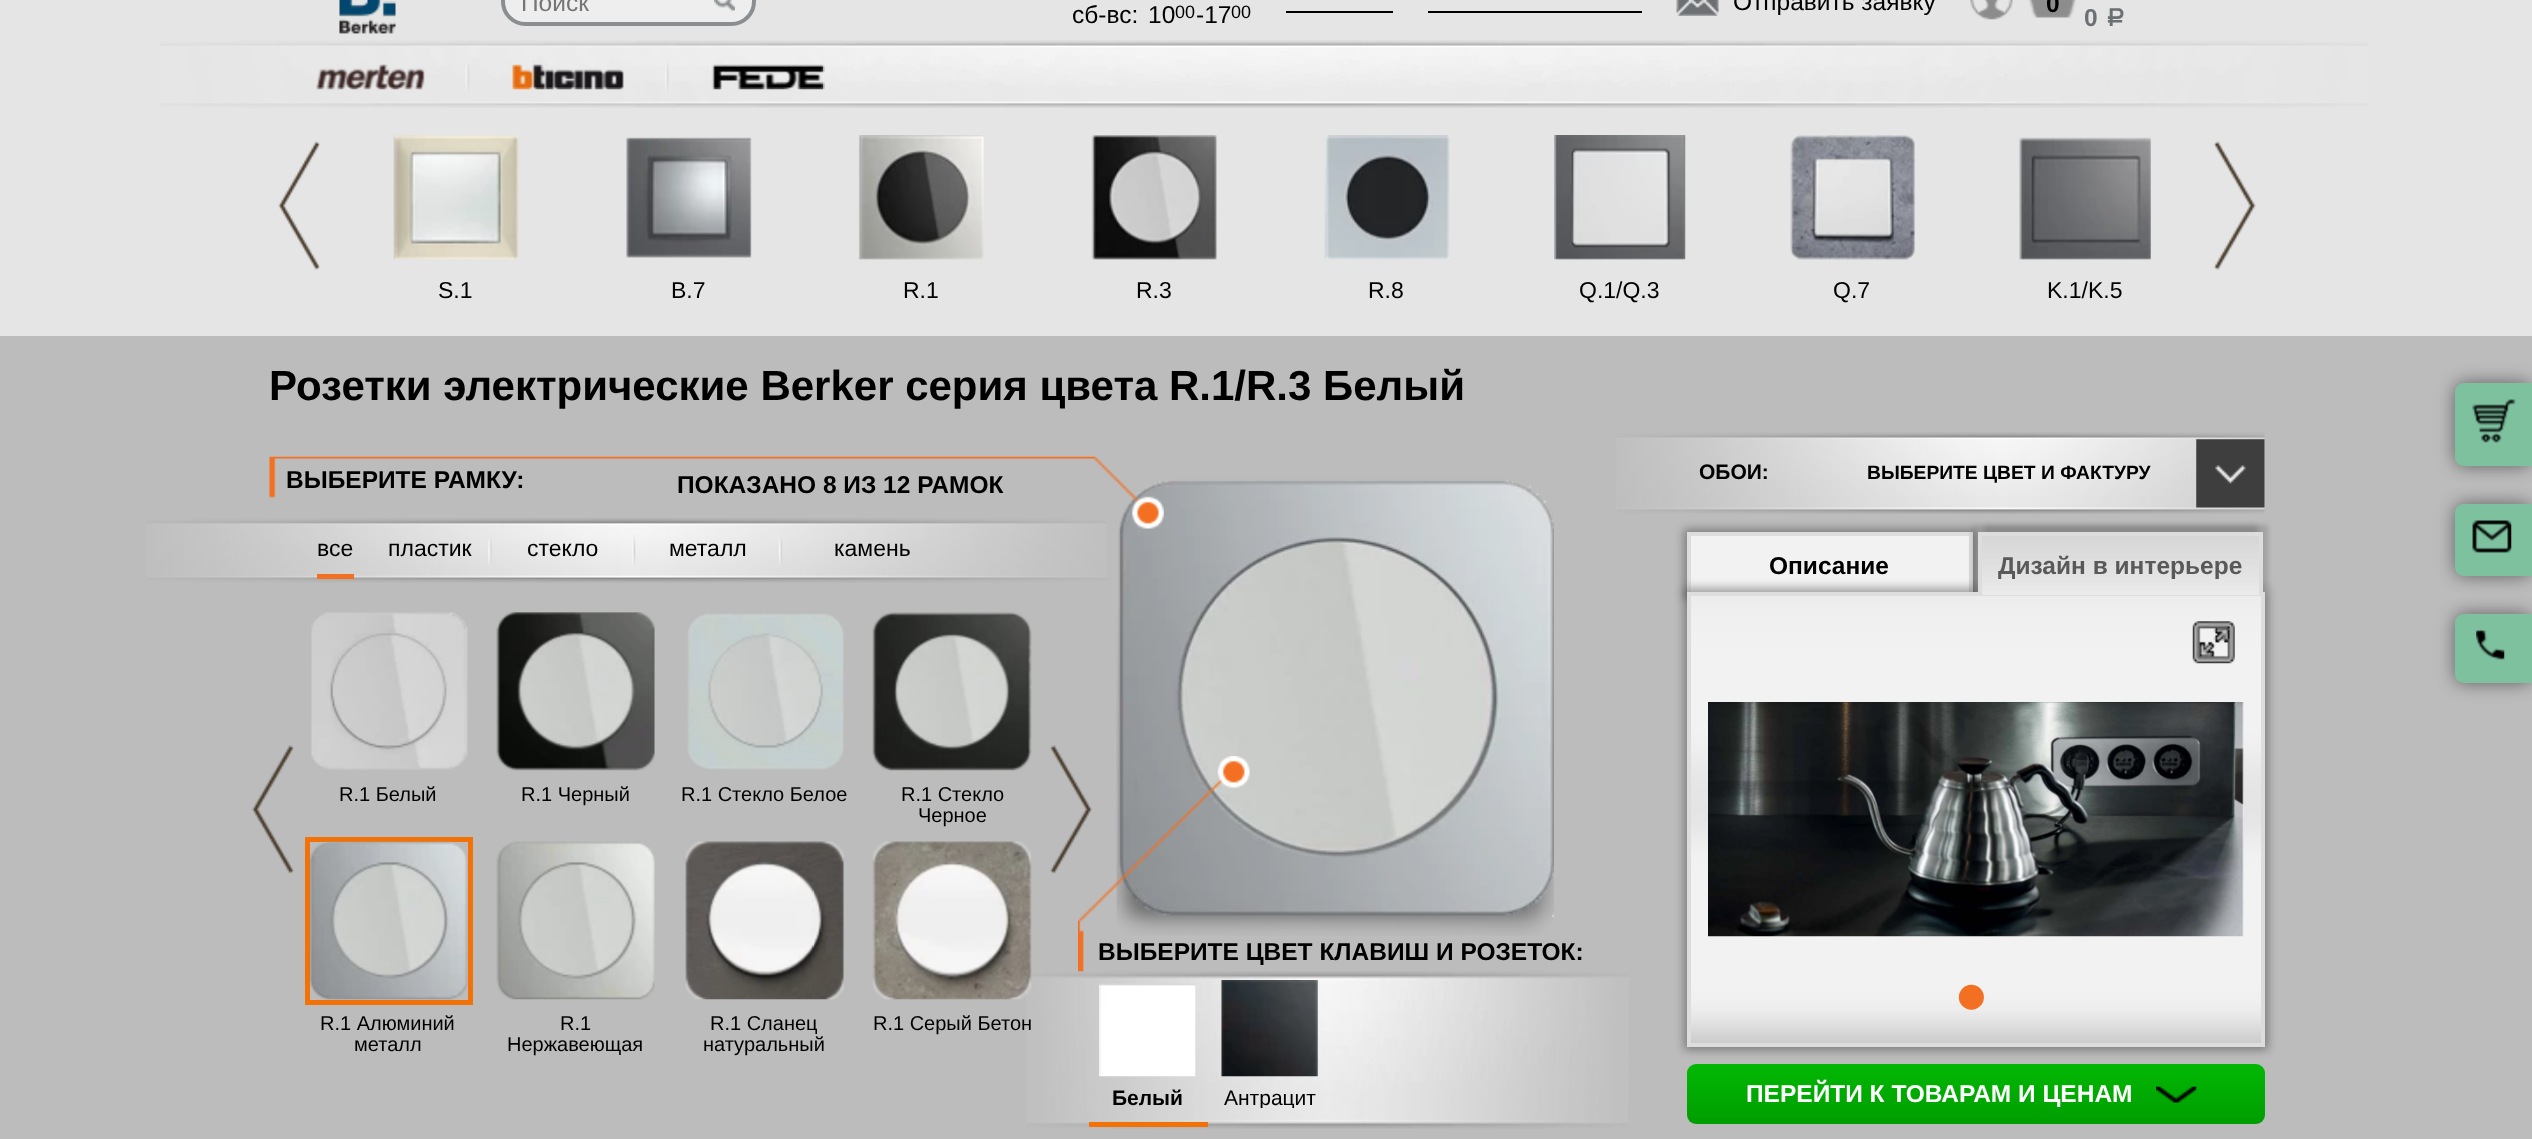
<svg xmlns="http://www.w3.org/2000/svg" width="2532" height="1139">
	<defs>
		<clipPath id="clip1"><rect x="1213" y="1089" width="115" height="19" /></clipPath>
		<linearGradient id="g1" gradientUnits="userSpaceOnUse" x1="1976" y1="1064" x2="1976" y2="1124"><stop offset="0" stop-color="#02B803" /><stop offset="1" stop-color="#009D01" /></linearGradient>
		<linearGradient id="g2" gradientUnits="userSpaceOnUse" x1="2120" y1="536" x2="2120" y2="595"><stop offset="0" stop-color="#D6D6D6" /><stop offset="1" stop-color="#EAEAEA" /></linearGradient>
	</defs>
	<rect width="100%" height="100%" fill="#BCBCBC" />
	<rect x="0" y="0" width="2532" height="336" fill="#E5E5E5" />
	<image x="339" y="0" width="57" height="34" href="assets/img1.png" />
	<rect x="503" y="-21" width="251" height="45" rx="22.5" fill="#EEEEEE" stroke="#8B8E90" stroke-width="4" />
	<text x="521" y="11" font-family="Liberation Sans" font-size="24.5" fill="#757575">Поиск</text>
	<image x="714" y="0" width="21" height="11" href="assets/img2.png" />
	<g font-family="Liberation Sans" font-size="24.5" fill="#000000">
		<text x="1072" y="23">сб-вс:</text>
		<text x="1148" y="23">10</text>
	</g>
	<text x="1175" y="18" font-family="Liberation Sans" font-size="18" fill="#000000">00</text>
	<text x="1196" y="23" font-family="Liberation Sans" font-size="24.5" fill="#000000">-17</text>
	<text x="1231" y="18" font-family="Liberation Sans" font-size="18" fill="#000000">00</text>
	<rect x="1286" y="11" width="107" height="2" fill="#000000" />
	<rect x="1428" y="11" width="214" height="2" fill="#000000" />
	<image x="1676" y="0" width="43" height="16" href="assets/img3.png" />
	<text x="1733" y="10" font-family="Liberation Sans" font-size="24.5" fill="#000000">Отправить заявку</text>
	<image x="1970" y="0" width="43" height="20" href="assets/img4.png" />
	<image x="2028" y="0" width="48" height="18" href="assets/img5.png" />
	<text x="2046" y="12" font-family="Liberation Sans" font-size="24.5" font-weight="700" fill="#000000">0</text>
	<text x="2084" y="26" font-family="Liberation Sans" font-size="24.5" font-weight="700" fill="#6C7072">0</text>
	<text x="2104" y="26" font-family="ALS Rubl" font-size="24.5" font-weight="700" fill="#6C7072">a</text>
	<image x="160" y="40" width="2208" height="68" href="assets/img6.png" />
	<image x="316" y="64" width="109" height="26" href="assets/img7.png" />
	<image x="465" y="64" width="5" height="26" href="assets/img8.png" />
	<image x="512" y="64" width="112" height="26" href="assets/img9.png" />
	<image x="665" y="62" width="4" height="29" href="assets/img10.png" />
	<image x="711" y="64" width="114" height="26" href="assets/img11.png" />
	<image x="278" y="141" width="43" height="129" href="assets/img12.png" />
	<image x="2213" y="141" width="43" height="129" href="assets/img13.png" />
	<image x="393" y="135" width="126" height="125" href="assets/img14.png" />
	<text x="438" y="298" font-family="Liberation Sans" font-size="23" fill="#000000">S.1</text>
	<image x="626" y="137" width="126" height="121" href="assets/img15.png" />
	<text x="671" y="298" font-family="Liberation Sans" font-size="23" fill="#000000">B.7</text>
	<image x="858" y="135" width="126" height="125" href="assets/img16.png" />
	<text x="903" y="298" font-family="Liberation Sans" font-size="23" fill="#000000">R.1</text>
	<image x="1091" y="135" width="126" height="125" href="assets/img17.png" />
	<text x="1136" y="298" font-family="Liberation Sans" font-size="23" fill="#000000">R.3</text>
	<image x="1324" y="135" width="126" height="125" href="assets/img18.png" />
	<text x="1368" y="298" font-family="Liberation Sans" font-size="23" fill="#000000">R.8</text>
	<image x="1554" y="135" width="132" height="125" href="assets/img19.png" />
	<text x="1579" y="298" font-family="Liberation Sans" font-size="23" fill="#000000">Q.1/Q.3</text>
	<image x="1790" y="135" width="125" height="125" href="assets/img20.png" />
	<text x="1833" y="298" font-family="Liberation Sans" font-size="23" fill="#000000">Q.7</text>
	<image x="2019" y="137" width="132" height="123" href="assets/img21.png" />
	<text x="2047" y="298" font-family="Liberation Sans" font-size="23" fill="#000000">K.1/K.5</text>
	<text x="269" y="400" font-family="Liberation Sans" font-size="42" font-weight="700" fill="#000000">Розетки электрические Berker серия цвета R.1/R.3 Белый</text>
	<rect x="2455" y="383" width="77" height="83" rx="9" fill="#000000" fill-opacity="0.5" filter="blur(9px)" />
	<path d="M2464 383H2532V466H2464C2459 466 2455 462 2455 457V392C2455 387 2459 383 2464 383Z" fill="#7DC19F" />
	<image x="2472" y="399" width="44" height="44" href="assets/img22.png" />
	<rect x="2455" y="504" width="77" height="72" rx="9" fill="#000000" fill-opacity="0.5" filter="blur(9px)" />
	<path d="M2464 504H2532V576H2464C2459 576 2455 572 2455 567V513C2455 508 2459 504 2464 504Z" fill="#7DC19F" />
	<image x="2472" y="520" width="40" height="33" href="assets/img23.png" />
	<rect x="2455" y="614" width="77" height="69" rx="9" fill="#000000" fill-opacity="0.5" filter="blur(9px)" />
	<path d="M2464 614H2532V683H2464C2459 683 2455 679 2455 674V623C2455 618 2459 614 2464 614Z" fill="#7DC19F" />
	<image x="2476" y="630" width="29" height="30" href="assets/img24.png" />
	<image x="146" y="518" width="961" height="65" href="assets/img26.png" />
	<image x="1116" y="609" width="438" height="327" href="assets/img40.png" />
	<image x="1118" y="479" width="436" height="438" href="assets/img41.png" />
	<image x="269" y="456" width="895" height="73" href="assets/img25.png" />
	<g font-family="Liberation Sans" font-size="24.5" font-weight="700" fill="#000000">
		<text x="286" y="488">ВЫБЕРИТЕ РАМКУ:</text>
		<text x="677" y="493">ПОКАЗАНО 8 ИЗ 12 РАМОК</text>
	</g>
	<rect x="317" y="574" width="37" height="5" fill="#F37022" />
	<g font-family="Liberation Sans" font-size="23" fill="#000000">
		<text x="317" y="556">все</text>
		<text x="388" y="556">пластик</text>
	</g>
	<image x="488" y="538" width="4" height="27" href="assets/img27.png" />
	<text x="527" y="556" font-family="Liberation Sans" font-size="23" fill="#000000">стекло</text>
	<image x="632" y="534" width="4" height="32" href="assets/img28.png" />
	<text x="669" y="556" font-family="Liberation Sans" font-size="23" fill="#000000">металл</text>
	<image x="778" y="537" width="5" height="30" href="assets/img29.png" />
	<text x="834" y="556" font-family="Liberation Sans" font-size="23" fill="#000000">камень</text>
	<image x="252" y="745" width="42" height="129" href="assets/img30.png" />
	<image x="311" y="612" width="157" height="158" href="assets/img31.png" />
	<text x="339" y="801" font-family="Liberation Sans" font-size="20" fill="#000000">R.1 Белый</text>
	<image x="496" y="612" width="159" height="159" href="assets/img32.png" />
	<text x="521" y="801" font-family="Liberation Sans" font-size="20" fill="#000000">R.1 Черный</text>
	<image x="687" y="613" width="157" height="157" href="assets/img33.png" />
	<text x="681" y="801" font-family="Liberation Sans" font-size="20" fill="#000000">R.1 Стекло Белое</text>
	<image x="872" y="612" width="160" height="159" href="assets/img34.png" />
	<g font-family="Liberation Sans" font-size="20" fill="#000000">
		<text x="901" y="801">R.1 Стекло</text>
		<text x="918" y="822">Черное</text>
	</g>
	<rect x="307.5" y="839.5" width="163" height="163" fill="none" stroke="#F37207" stroke-width="5" />
	<image x="309" y="841" width="159" height="159" href="assets/img35.png" />
	<g font-family="Liberation Sans" font-size="20" fill="#000000">
		<text x="320" y="1030">R.1 Алюминий</text>
		<text x="354" y="1051">металл</text>
	</g>
	<image x="496" y="841" width="159" height="159" href="assets/img36.png" />
	<g font-family="Liberation Sans" font-size="20" fill="#000000">
		<text x="560" y="1030">R.1</text>
		<text x="507" y="1051">Нержавеющая</text>
	</g>
	<image x="685" y="841" width="159" height="159" href="assets/img37.png" />
	<g font-family="Liberation Sans" font-size="20" fill="#000000">
		<text x="710" y="1030">R.1 Сланец</text>
		<text x="703" y="1051">натуральный</text>
	</g>
	<image x="1078" y="756" width="172" height="216" href="assets/img42.png" />
	<image x="1026" y="971" width="603" height="158" href="assets/img43.png" />
	<image x="872" y="841" width="160" height="159" href="assets/img38.png" />
	<text x="873" y="1030" font-family="Liberation Sans" font-size="20" fill="#000000">R.1 Серый Бетон</text>
	<image x="1050" y="745" width="42" height="129" href="assets/img39.png" />
	<text x="1098" y="960" font-family="Liberation Sans" font-size="24.5" font-weight="700" fill="#000000">ВЫБЕРИТЕ ЦВЕТ КЛАВИШ И РОЗЕТОК:</text>
	<rect x="1089" y="1122" width="119" height="5" fill="#F37207" />
	<image x="1099" y="983" width="97" height="94" href="assets/img44.png" />
	<text x="1112" y="1105" font-family="Liberation Sans" font-size="21" font-weight="700" fill="#000000">Белый</text>
	<image x="1221" y="980" width="97" height="97" href="assets/img45.png" />
	<g clip-path="url(#clip1)">
		<text x="1224" y="1105" font-family="Liberation Sans" font-size="21" fill="#000000">Антрацит</text>
	</g>
	<image x="1616" y="432" width="649" height="82" href="assets/img46.png" />
	<image x="2196" y="439" width="69" height="69" href="assets/img47.png" />
	<text x="1699" y="479" font-family="Liberation Sans" font-size="21" font-weight="700" fill="#000000">ОБОИ:</text>
	<text x="1867" y="479" font-family="Liberation Sans" font-size="19.25" font-weight="700" fill="#000000">ВЫБЕРИТЕ ЦВЕТ И ФАКТУРУ</text>
	<rect x="1684" y="529" width="292" height="70" fill="#000000" fill-opacity="0.34" filter="blur(5px)" />
	<rect x="1691" y="536" width="278" height="56" fill="#F2F2F2" />
	<rect x="1687" y="532" width="285" height="4" fill="#DDDDDD" />
	<rect x="1969" y="532" width="4" height="63" fill="#DDDDDD" />
	<rect x="1687" y="532" width="4" height="63" fill="#DDDDDD" />
	<text x="1769" y="574" font-family="Liberation Sans" font-size="24.5" font-weight="700" fill="#000000">Описание</text>
	<rect x="1687" y="1064" width="578" height="60" rx="9" fill="url(#g1)" />
	<rect x="1684" y="588" width="584" height="462" fill="#000000" fill-opacity="0.34" filter="blur(5px)" />
	<image x="1691" y="596" width="570" height="447" href="assets/img48.png" />
	<rect x="1689" y="594" width="574" height="451" fill="none" stroke="#DDDDDD" stroke-width="4" />
	<rect x="1983" y="525" width="285" height="63" fill="#000000" fill-opacity="0.14" filter="blur(2.5px)" />
	<rect x="1972" y="525" width="286" height="63" fill="#000000" fill-opacity="0.14" filter="blur(2.5px)" />
	<rect x="1982" y="536" width="277" height="59" fill="url(#g2)" />
	<rect x="1978" y="532" width="285" height="4" fill="#DDDDDD" />
	<rect x="2259" y="532" width="4" height="63" fill="#DDDDDD" />
	<rect x="1978" y="532" width="4" height="63" fill="#DDDDDD" />
	<text x="1998" y="574" font-family="Liberation Sans" font-size="24.5" font-weight="700" fill="#595959">Дизайн в интерьере</text>
	<image x="2192" y="621" width="43" height="43" href="assets/img49.png" />
	<image x="1708" y="702" width="536" height="235" href="assets/img50.png" />
	<text x="1953" y="1032" font-family="Liberation Serif" font-size="105" fill="#F37022">•</text>
	<text x="1746" y="1102" font-family="Liberation Sans" font-size="24.5" font-weight="700" fill="#FFFFFF">ПЕРЕЙТИ К ТОВАРАМ И ЦЕНАМ</text>
	<image x="2156" y="1086" width="41" height="17" href="assets/img51.png" />
</svg>
